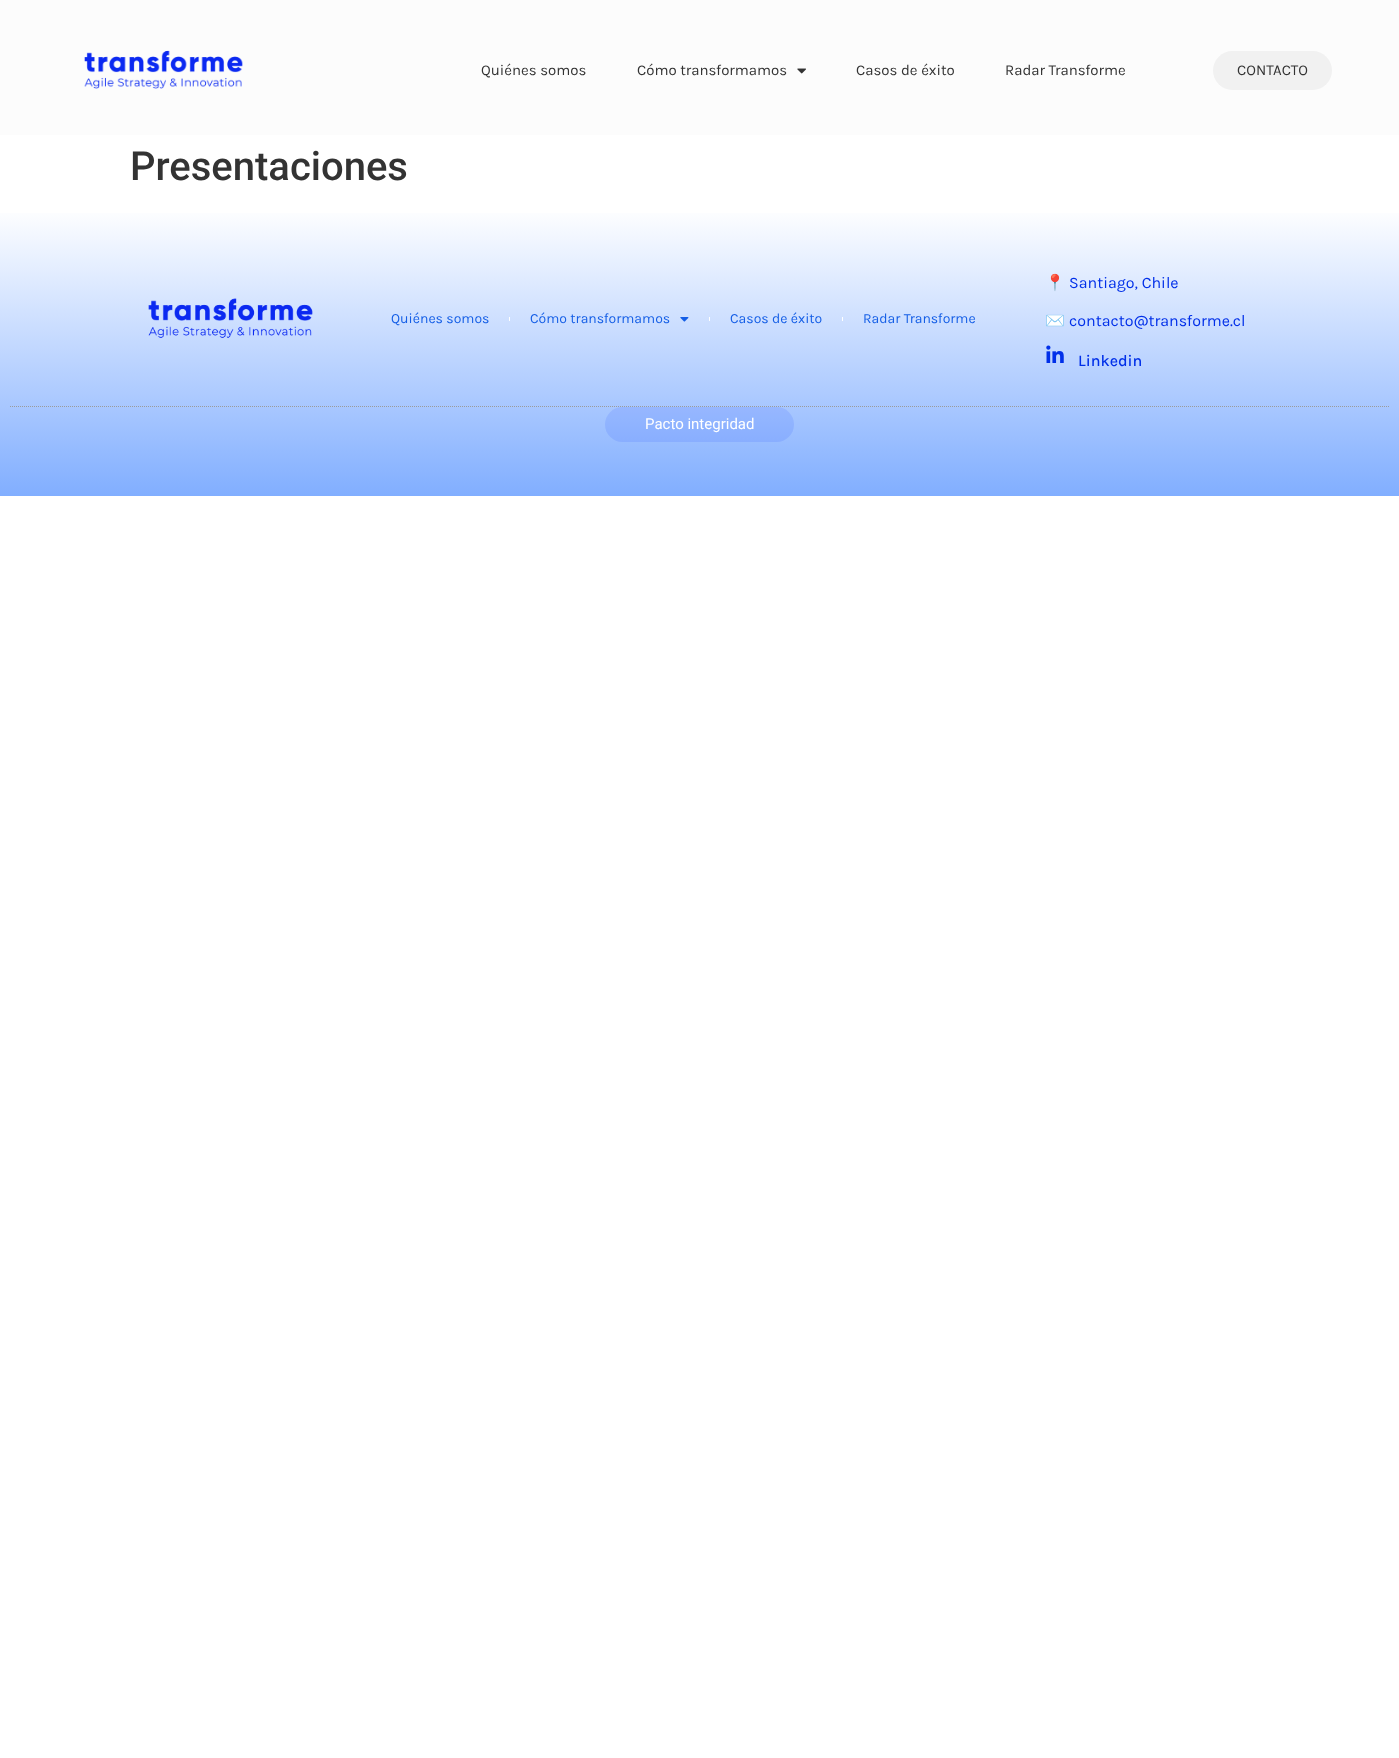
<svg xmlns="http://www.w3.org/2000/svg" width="1399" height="1758">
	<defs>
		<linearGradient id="g1" gradientUnits="userSpaceOnUse" x1="700" y1="207" x2="700" y2="496"><stop offset="0" stop-color="#FFFFFF" /><stop offset="1" stop-color="#81AEFF" /></linearGradient>
	</defs>
	<rect width="100%" height="100%" fill="#FFFFFF" />
	<rect x="0" y="0" width="1399" height="135" fill="#FCFCFC" />
	<image x="84" y="50" width="159" height="39" href="assets/img1.png" />
	<g font-family="Karla" font-size="15" fill="#333333">
		<text x="481" y="75">Quiénes somos</text>
		<text x="637" y="75">Cómo transformamos</text>
	</g>
	<image x="797" y="68" width="9" height="6" href="assets/img2.png" />
	<g font-family="Karla" font-size="15" fill="#333333">
		<text x="856" y="75">Casos de éxito</text>
		<text x="1005" y="75">Radar Transforme</text>
	</g>
	<rect x="1213" y="51" width="119" height="39" rx="19.5" fill="#F1F1F1" />
	<text x="1237" y="75" font-family="Karla" font-size="15" fill="#333333">CONTACTO</text>
	<text x="130" y="180" font-family="Roboto" font-size="40" font-weight="500" fill="#333333">Presentaciones</text>
	<rect x="0" y="213" width="1399" height="283" fill="url(#g1)" />
	<path d="M10 406.5H1389" fill="none" stroke="#9B9B9B" stroke-dasharray="1 1" />
	<image x="148" y="298" width="165" height="40" href="assets/img3.png" />
	<text x="391" y="323" font-family="Karla" font-size="14" fill="#145EE6">Quiénes somos</text>
	<rect x="509" y="317" width="1" height="4" fill="#FFFFFF" />
	<text x="530" y="323" font-family="Karla" font-size="14" fill="#145EE6">Cómo transformamos</text>
	<image x="680" y="317" width="9" height="5" href="assets/img4.png" />
	<rect x="709" y="317" width="1" height="4" fill="#FFFFFF" />
	<text x="730" y="323" font-family="Karla" font-size="14" fill="#145EE6">Casos de éxito</text>
	<rect x="842" y="317" width="1" height="4" fill="#FFFFFF" />
	<text x="863" y="323" font-family="Karla" font-size="14" fill="#145EE6">Radar Transforme</text>
	<text x="1045" y="288" font-family="Noto Color Emoji" font-size="16" fill="#002FE9">📍</text>
	<text x="1069" y="288" font-family="Karla" font-size="16" fill="#002FE9">Santiago, Chile</text>
	<text x="1045" y="326" font-family="Noto Color Emoji" font-size="16" fill="#002FE9">✉️</text>
	<text x="1069" y="326" font-family="Karla" font-size="16" fill="#002FE9">contacto@transforme.cl</text>
	<image x="1046" y="345" width="18" height="18" href="assets/img5.png" />
	<text x="1078" y="366" font-family="Karla" font-size="16" font-weight="500" fill="#002FE9">Linkedin</text>
	<rect x="605" y="407" width="189" height="35" rx="17.5" fill="#0033FF" fill-opacity="0.1" />
	<text x="645" y="429" font-family="Roboto" font-size="15" fill="#FFFFFF">Pacto integridad</text>
</svg>
